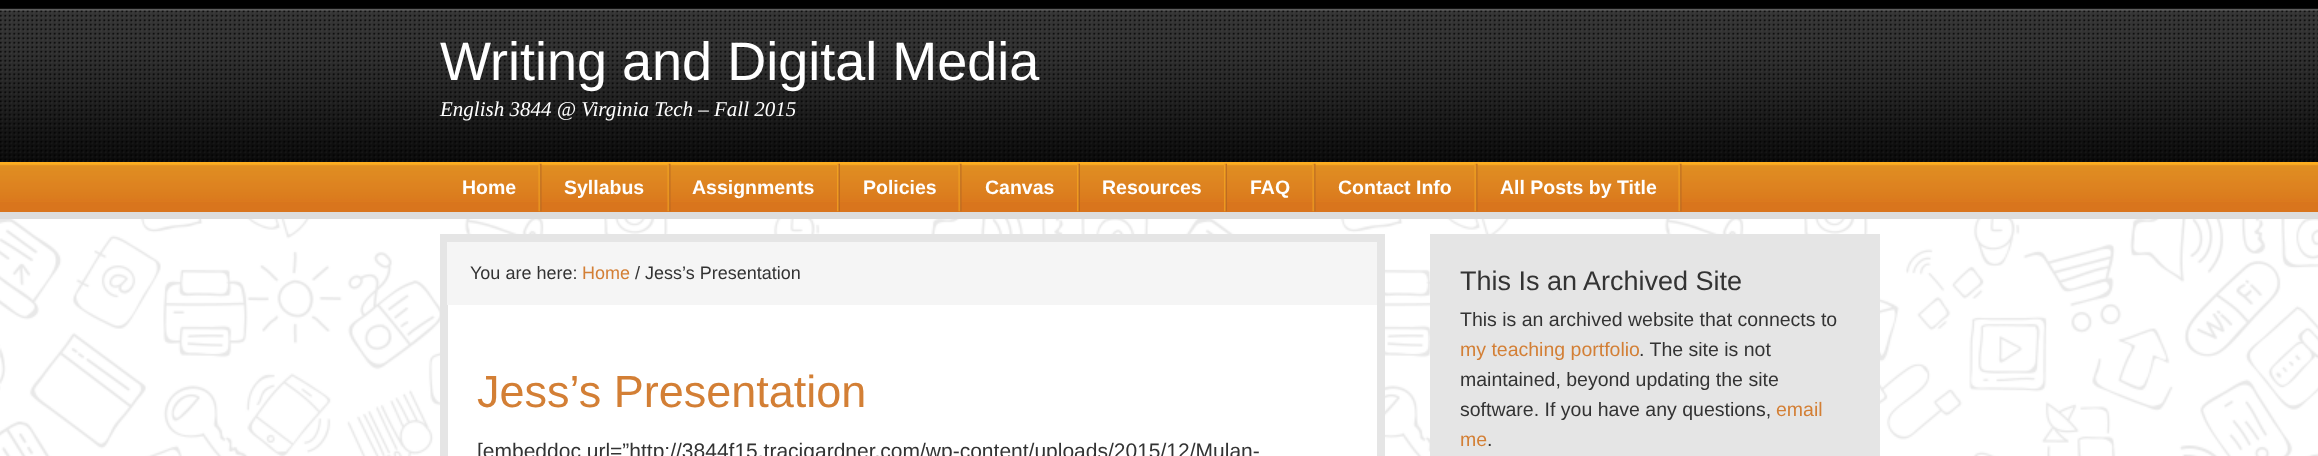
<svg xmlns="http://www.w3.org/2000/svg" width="2318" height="456">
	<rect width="100%" height="100%" fill="#FFFFFF" />
	<image x="0" y="219" width="2318" height="237" href="assets/img1.png" />
	<rect x="0" y="0" width="2318" height="8" fill="#000000" />
	<image x="0" y="8" width="2318" height="154" href="assets/img2.png" />
	<text x="440" y="80" font-family="Liberation Sans" font-size="54" fill="#FFFFFF">Writing and Digital Media</text>
	<text x="440" y="116" font-family="Liberation Serif" font-size="21" font-style="italic" fill="#FFFFFF">English 3844 @ Virginia Tech – Fall 2015</text>
	<rect x="0" y="202" width="2318" height="10" fill="#D9751D" />
	<image x="0" y="164" width="2318" height="38" href="assets/img3.png" />
	<rect x="0" y="162" width="2318" height="2" fill="#FCAD21" />
	<rect x="0" y="212" width="2318" height="7" fill="#DDDDDD" />
	<image x="538" y="163" width="4" height="49" href="assets/img4.png" />
	<text x="462" y="194" font-family="Liberation Sans" font-size="19.5" font-weight="700" fill="#FFFFFF">Home</text>
	<image x="667" y="163" width="4" height="49" href="assets/img4.png" />
	<text x="564" y="194" font-family="Liberation Sans" font-size="19.5" font-weight="700" fill="#FFFFFF">Syllabus</text>
	<image x="837" y="163" width="3" height="49" href="assets/img5.png" />
	<text x="692" y="194" font-family="Liberation Sans" font-size="19.5" font-weight="700" fill="#FFFFFF">Assignments</text>
	<image x="958" y="163" width="4" height="49" href="assets/img4.png" />
	<text x="863" y="194" font-family="Liberation Sans" font-size="19.5" font-weight="700" fill="#FFFFFF">Policies</text>
	<image x="1077" y="163" width="3" height="49" href="assets/img6.png" />
	<text x="985" y="194" font-family="Liberation Sans" font-size="19.5" font-weight="700" fill="#FFFFFF">Canvas</text>
	<image x="1224" y="163" width="3" height="49" href="assets/img6.png" />
	<text x="1102" y="194" font-family="Liberation Sans" font-size="19.5" font-weight="700" fill="#FFFFFF">Resources</text>
	<image x="1312" y="163" width="4" height="49" href="assets/img4.png" />
	<text x="1250" y="194" font-family="Liberation Sans" font-size="19.5" font-weight="700" fill="#FFFFFF">FAQ</text>
	<image x="1474" y="163" width="4" height="49" href="assets/img4.png" />
	<text x="1338" y="194" font-family="Liberation Sans" font-size="19.5" font-weight="700" fill="#FFFFFF">Contact Info</text>
	<image x="1678" y="163" width="4" height="49" href="assets/img4.png" />
	<text x="1500" y="194" font-family="Liberation Sans" font-size="19.5" font-weight="700" fill="#FFFFFF">All Posts by Title</text>
	<rect x="448" y="305" width="929" height="151" fill="#FFFFFF" />
	<rect x="444" y="238" width="937" height="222" fill="none" stroke="#E5E5E5" stroke-width="8" />
	<rect x="447" y="242" width="930" height="63" fill="#F5F5F5" />
	<text x="470" y="279" font-family="Liberation Sans" font-size="18" fill="#333333">You are here:</text>
	<text x="582" y="279" font-family="Liberation Sans" font-size="18" fill="#D37F35">Home</text>
	<text x="635" y="279" font-family="Liberation Sans" font-size="18" fill="#333333">/ Jess’s Presentation</text>
	<text x="477" y="407" font-family="Liberation Sans" font-size="45" fill="#D37F35">Jess’s Presentation</text>
	<text x="477" y="458" font-family="Liberation Sans" font-size="21" fill="#333333">[embeddoc url=”http://3844f15.tracigardner.com/wp-content/uploads/2015/12/Mulan-</text>
	<rect x="1430" y="234" width="450" height="222" fill="#E5E5E5" />
	<text x="1460" y="290" font-family="Liberation Sans" font-size="27" fill="#333333">This Is an Archived Site</text>
	<text x="1460" y="326" font-family="Liberation Sans" font-size="19.5" fill="#333333">This is an archived website that connects to</text>
	<text x="1460" y="356" font-family="Liberation Sans" font-size="19.5" fill="#D37F35">my teaching portfolio</text>
	<g font-family="Liberation Sans" font-size="19.5" fill="#333333">
		<text x="1639" y="356">. The site is not</text>
		<text x="1460" y="386">maintained, beyond updating the site</text>
		<text x="1460" y="416">software. If you have any questions,</text>
	</g>
	<g font-family="Liberation Sans" font-size="19.5" fill="#D37F35">
		<text x="1776" y="416">email</text>
		<text x="1460" y="446">me</text>
	</g>
	<text x="1487" y="446" font-family="Liberation Sans" font-size="19.5" fill="#333333">.</text>
</svg>
